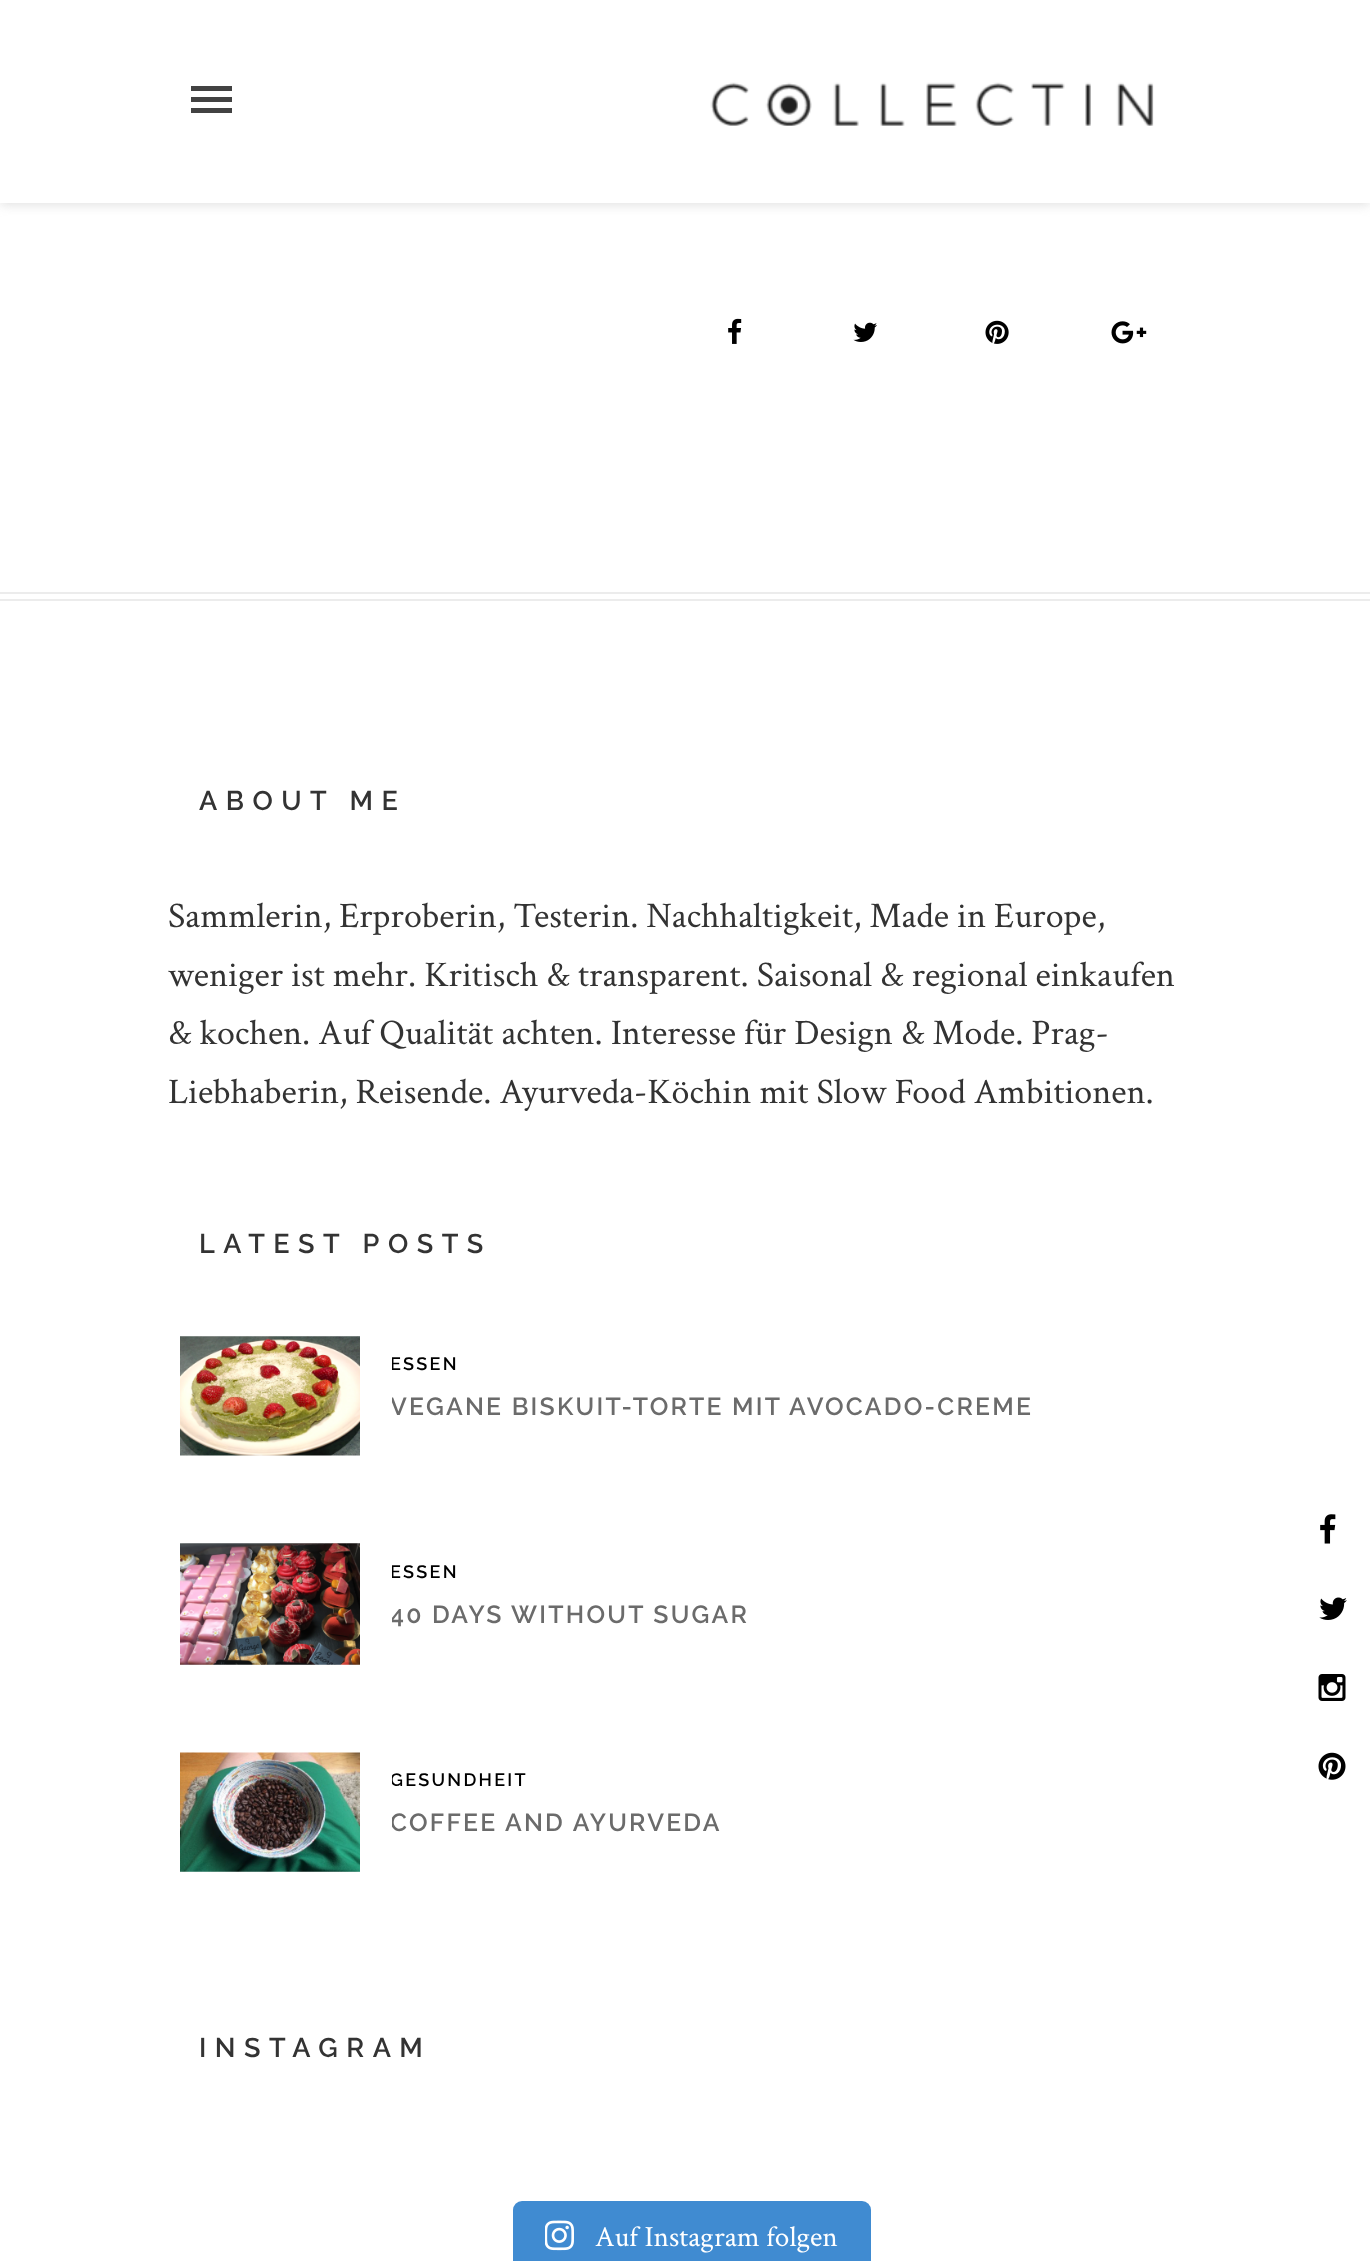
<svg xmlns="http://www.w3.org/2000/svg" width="1370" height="2261">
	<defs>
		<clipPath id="clip1"><rect x="392" y="1337" width="801" height="87" /></clipPath>
		<clipPath id="clip2"><rect x="392" y="1544" width="801" height="87" /></clipPath>
		<clipPath id="clip3"><rect x="392" y="1753" width="801" height="88" /></clipPath>
	</defs>
	<rect width="100%" height="100%" fill="#FFFFFF" />
	<rect x="0" y="2" width="1370" height="203" fill="#BEBEBE" fill-opacity="0.46" filter="blur(5.5px)" />
	<rect x="0" y="0" width="1370" height="203" fill="#FFFFFF" />
	<rect x="191" y="86" width="41" height="5" fill="#424242" />
	<rect x="191" y="97" width="41" height="5" fill="#424242" />
	<rect x="191" y="108" width="41" height="5" fill="#424242" />
	<image x="710" y="82" width="444" height="44" href="assets/img1.png" />
	<image x="728" y="318" width="14" height="26" href="assets/img2.png" />
	<image x="853" y="322" width="24" height="20" href="assets/img3.png" />
	<image x="985" y="320" width="24" height="24" href="assets/img4.png" />
	<image x="1111" y="321" width="36" height="23" href="assets/img5.png" />
	<rect x="0" y="592" width="1370" height="2" fill="#ECECEC" />
	<rect x="0" y="599" width="1370" height="2" fill="#ECECEC" />
	<text x="199" y="810" font-family="Raleway" font-size="27" font-weight="600" letter-spacing="8.5" fill="#333333">ABOUT ME</text>
	<g font-family="Crimson Text" font-size="36" fill="#333333">
		<text x="168" y="927">Sammlerin, Erproberin, Testerin. Nachhaltigkeit, Made in Europe,</text>
		<text x="168" y="986">weniger ist mehr. Kritisch &amp; transparent. Saisonal &amp; regional einkaufen</text>
		<text x="168" y="1044">&amp; kochen. Auf Qualität achten. Interesse für Design &amp; Mode. Prag-</text>
		<text x="168" y="1103">Liebhaberin, Reisende. Ayurveda-Köchin mit Slow Food Ambitionen.</text>
	</g>
	<text x="199" y="1253" font-family="Raleway" font-size="27" font-weight="600" letter-spacing="8.5" fill="#333333">LATEST POSTS</text>
	<image x="180" y="1336" width="180" height="120" href="assets/img6.png" />
	<g clip-path="url(#clip1)">
		<text x="390" y="1370" font-family="Raleway" font-size="18" font-weight="600" letter-spacing="2.25" fill="#000000">ESSEN</text>
		<text x="390" y="1415" font-family="Raleway" font-size="24.75" font-weight="600" letter-spacing="2.25" fill="#6B6B6B">VEGANE BISKUIT-TORTE MIT AVOCADO-CREME</text>
	</g>
	<image x="180" y="1543" width="180" height="122" href="assets/img7.png" />
	<g clip-path="url(#clip2)">
		<text x="390" y="1578" font-family="Raleway" font-size="18" font-weight="600" letter-spacing="2.25" fill="#000000">ESSEN</text>
		<text x="390" y="1623" font-family="Raleway" font-size="24.75" font-weight="600" letter-spacing="2.25" fill="#6B6B6B">40 DAYS WITHOUT SUGAR</text>
	</g>
	<image x="180" y="1752" width="180" height="120" href="assets/img8.png" />
	<g clip-path="url(#clip3)">
		<text x="390" y="1786" font-family="Raleway" font-size="18" font-weight="600" letter-spacing="2.25" fill="#000000">GESUNDHEIT</text>
		<text x="390" y="1831" font-family="Raleway" font-size="24.75" font-weight="600" letter-spacing="2.25" fill="#6B6B6B">COFFEE AND AYURVEDA</text>
	</g>
	<text x="199" y="2057" font-family="Raleway" font-size="27" font-weight="600" letter-spacing="8.5" fill="#333333">INSTAGRAM</text>
	<rect x="513" y="2201" width="358" height="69" rx="9" fill="#408BD1" />
	<image x="545" y="2220" width="29" height="31" href="assets/img9.png" />
	<text x="595" y="2246" font-family="Crimson Text" font-size="29.25" fill="#FFFFFF">Auf Instagram folgen</text>
	<image x="1320" y="1514" width="16" height="30" href="assets/img10.png" />
	<image x="1319" y="1597" width="28" height="23" href="assets/img11.png" />
	<image x="1318" y="1674" width="28" height="27" href="assets/img12.png" />
	<image x="1318" y="1752" width="28" height="28" href="assets/img13.png" />
</svg>
